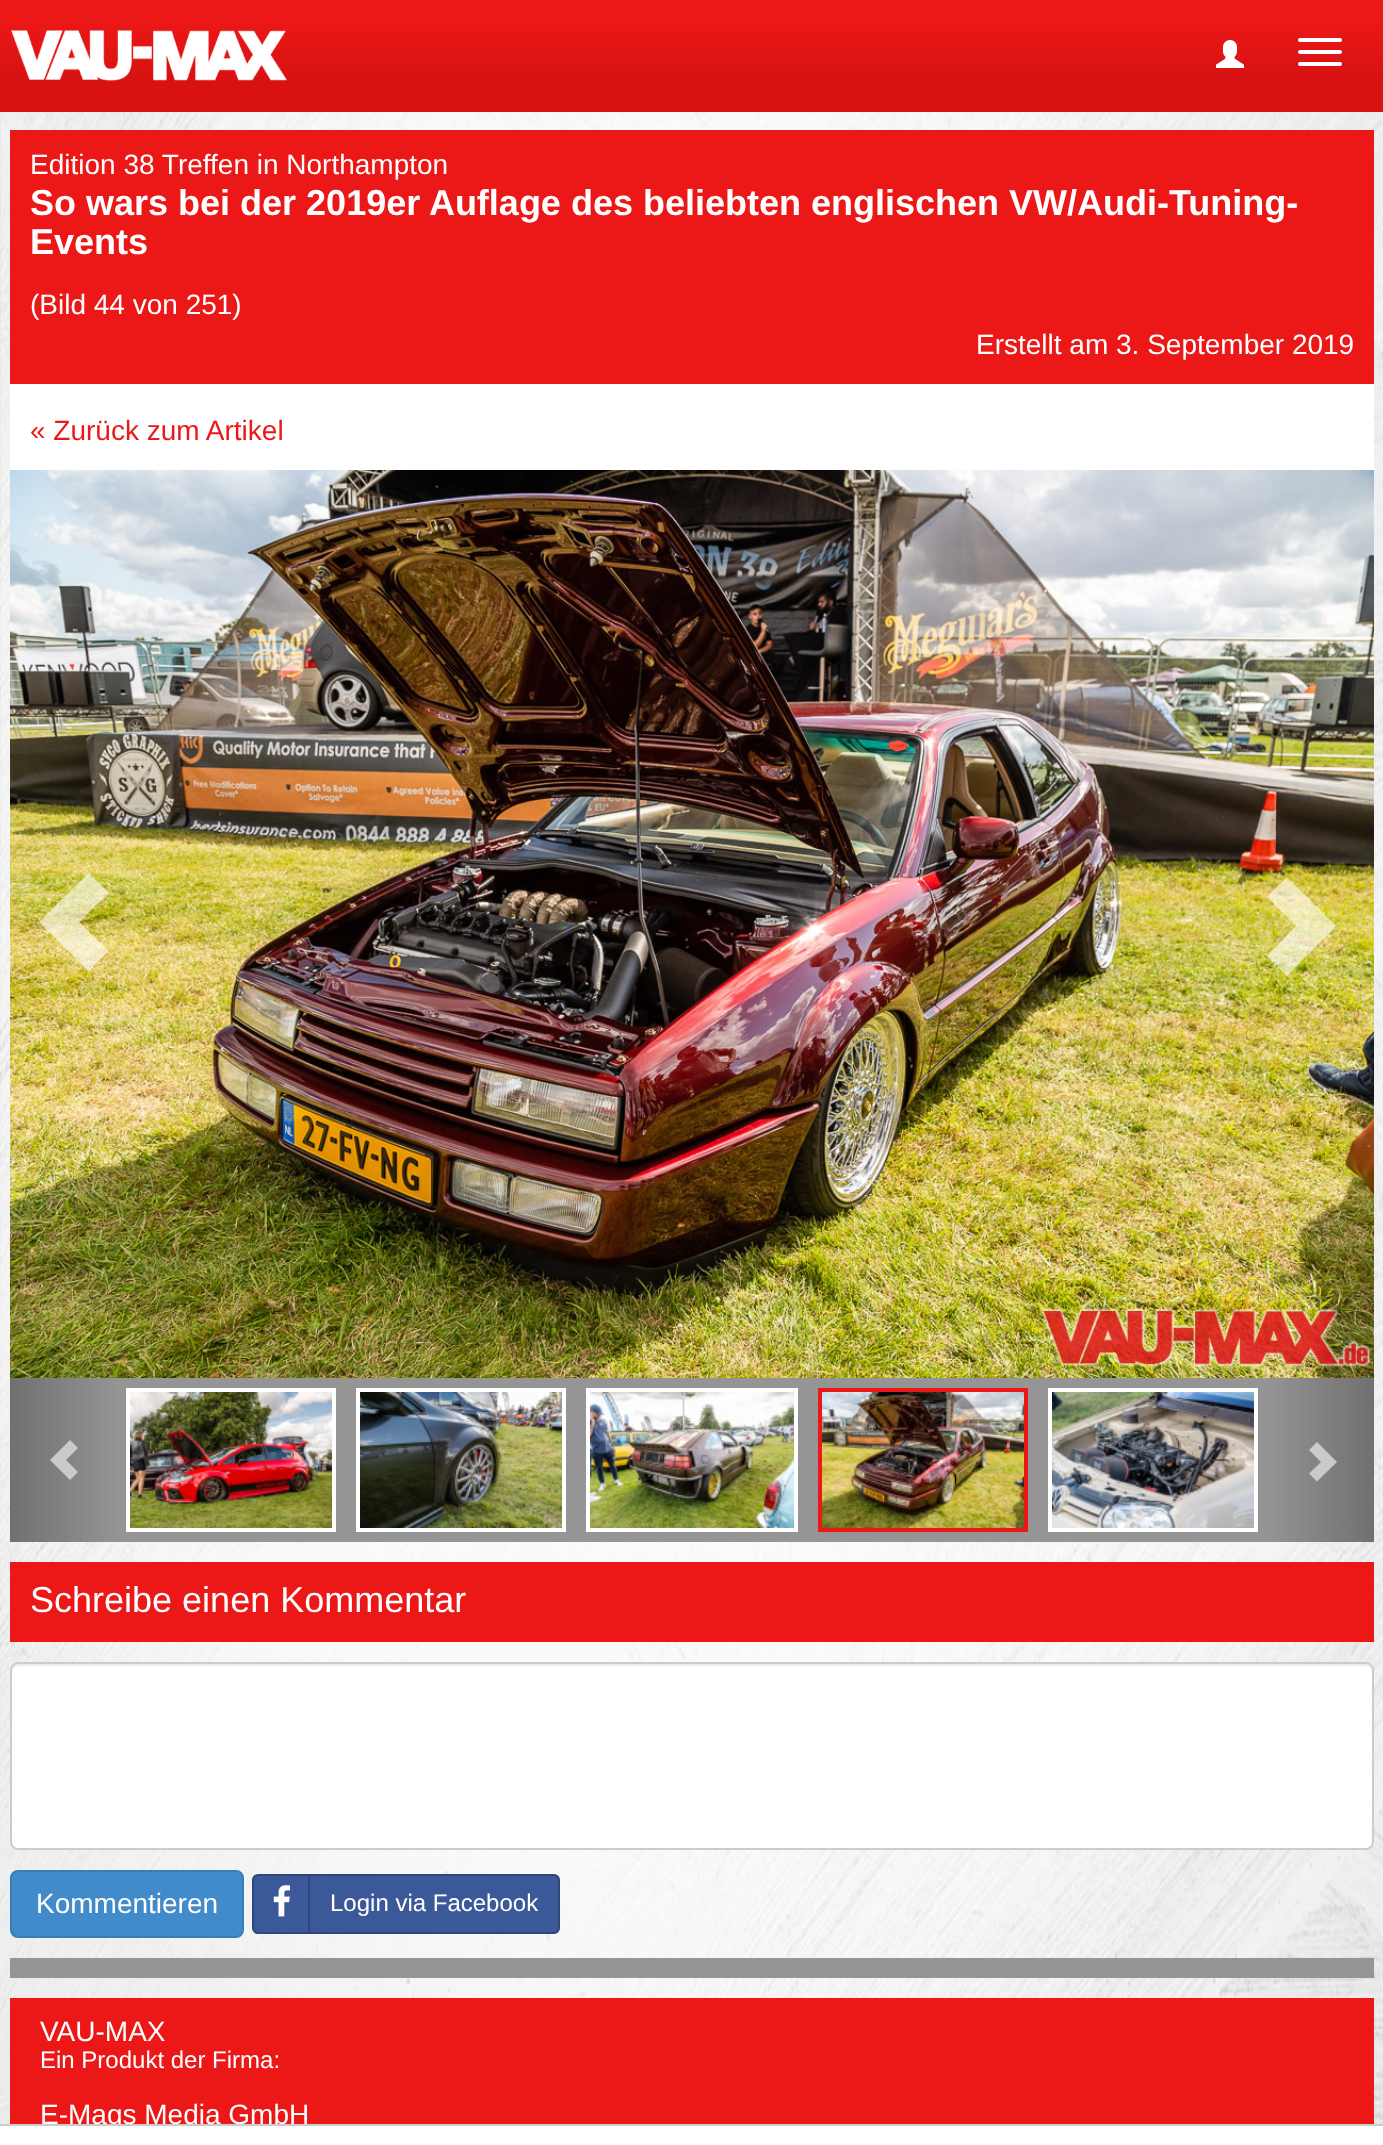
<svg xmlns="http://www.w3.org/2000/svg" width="1383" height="2145">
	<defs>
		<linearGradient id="g1" gradientUnits="userSpaceOnUse" x1="692" y1="0" x2="692" y2="112"><stop offset="0.2" stop-color="#EC1717" /><stop offset="0.7" stop-color="#D81212" /></linearGradient>
		<linearGradient id="g2" gradientUnits="userSpaceOnUse" x1="10" y1="1460" x2="120" y2="1460"><stop offset="0" stop-color="#707070" /><stop offset="1" stop-color="#959595" /></linearGradient>
		<linearGradient id="g3" gradientUnits="userSpaceOnUse" x1="1264" y1="1460" x2="1374" y2="1460"><stop offset="0" stop-color="#959595" /><stop offset="1" stop-color="#707070" /></linearGradient>
	</defs>
	<rect width="100%" height="100%" fill="#FFFFFF" />
	<image x="0" y="112" width="1383" height="2012" href="assets/img1.png" />
	<rect x="0" y="0" width="1383" height="112" fill="url(#g1)" />
	<image x="11" y="30" width="276" height="56" href="assets/img2.png" />
	<image x="1216" y="40" width="28" height="28" href="assets/img3.png" />
	<rect x="1298" y="38" width="44" height="4" rx="2" fill="#FFFFFF" />
	<rect x="1298" y="50" width="44" height="4" rx="2" fill="#FFFFFF" />
	<rect x="1298" y="62" width="44" height="4" rx="2" fill="#FFFFFF" />
	<rect x="10" y="130" width="1364" height="254" fill="#EC1717" />
	<rect x="10" y="384" width="1364" height="86" fill="#FFFFFF" />
	<text x="30" y="174" font-family="Liberation Sans" font-size="28" fill="#FFFFFF">Edition 38 Treffen in Northampton</text>
	<g font-family="Liberation Sans" font-size="36" font-weight="700" fill="#FFFFFF">
		<text x="30" y="215">So wars bei der 2019er Auflage des beliebten englischen VW/Audi-Tuning-</text>
		<text x="30" y="254">Events</text>
	</g>
	<g font-family="Liberation Sans" font-size="28" fill="#FFFFFF">
		<text x="30" y="314">(Bild 44 von 251)</text>
		<text x="976" y="354">Erstellt am 3. September 2019</text>
	</g>
	<text x="30" y="440" font-family="Liberation Sans" font-size="28" fill="#EC1717">« Zurück zum Artikel</text>
	<image x="10" y="470" width="1364" height="908" href="assets/img4.png" />
	<path d="M39 922L89 971L109 951L79 922L109 893L89 873Z" fill="#FFFFFF" fill-opacity="0.6" />
	<path d="M1267 956L1296 926L1267 897L1287 877L1336 926L1287 976Z" fill="#FFFFFF" fill-opacity="0.6" />
	<rect x="120" y="1378" width="1144" height="164" fill="#959595" />
	<rect x="10" y="1378" width="110" height="164" fill="url(#g2)" />
	<path d="M50 1460L70 1480L78 1472L66 1460L78 1448L70 1440Z" fill="#CACACA" />
	<rect x="128" y="1390" width="206" height="140" fill="none" stroke="#FFFFFF" stroke-width="4" />
	<image x="130" y="1392" width="202" height="136" href="assets/img5.png" />
	<rect x="358" y="1390" width="206" height="140" fill="none" stroke="#FFFFFF" stroke-width="4" />
	<image x="360" y="1392" width="202" height="136" href="assets/img6.png" />
	<rect x="588" y="1390" width="208" height="140" fill="none" stroke="#FFFFFF" stroke-width="4" />
	<image x="590" y="1392" width="204" height="136" href="assets/img7.png" />
	<rect x="820" y="1390" width="206" height="140" fill="none" stroke="#EC1717" stroke-width="4" />
	<image x="822" y="1392" width="202" height="136" href="assets/img8.png" />
	<rect x="1050" y="1390" width="206" height="140" fill="none" stroke="#FFFFFF" stroke-width="4" />
	<image x="1052" y="1392" width="202" height="136" href="assets/img9.png" />
	<rect x="1264" y="1378" width="110" height="164" fill="url(#g3)" />
	<path d="M1309 1473.5L1321 1462L1309 1450L1317 1442L1337 1462L1317 1481.5Z" fill="#CACACA" />
	<rect x="10" y="1562" width="1364" height="80" fill="#EC1717" />
	<text x="30" y="1612" font-family="Liberation Sans" font-size="36" fill="#FFFFFF">Schreibe einen Kommentar</text>
	<rect x="10" y="1662" width="1364" height="188" rx="8" fill="#FFFFFF" />
	<path d="M18 1666H1366C1369 1666 1372 1669 1372 1672V1670C1372 1667 1369 1664 1366 1664H18C15 1664 12 1667 12 1670V1672C12 1669 15 1666 18 1666Z" fill="#ECECEC" />
	<rect x="11" y="1663" width="1362" height="186" rx="7" fill="none" stroke="#CCCCCC" stroke-width="2" />
	<rect x="11" y="1871" width="232" height="66" rx="7" fill="#428BCA" stroke="#357EBD" stroke-width="2" />
	<text x="36" y="1913" font-family="Liberation Sans" font-size="28" fill="#FFFFFF">Kommentieren</text>
	<rect x="252" y="1874" width="308" height="60" rx="6" fill="#3B5998" />
	<rect x="253" y="1875" width="306" height="58" rx="5" fill="none" stroke="#000000" stroke-opacity="0.2" stroke-width="2" />
	<rect x="308" y="1876" width="2" height="56" fill="#2F477A" />
	<image x="273" y="1885" width="17" height="32" href="assets/img10.png" />
	<text x="330" y="1911" font-family="Liberation Sans" font-size="24" fill="#FFFFFF">Login via Facebook</text>
	<rect x="10" y="1958" width="1364" height="20" fill="#959595" />
	<rect x="10" y="1998" width="1364" height="126" fill="#EC1717" />
	<text x="40" y="2041" font-family="Liberation Sans" font-size="28" fill="#FFFFFF">VAU-MAX</text>
	<text x="40" y="2068" font-family="Liberation Sans" font-size="24" fill="#FFFFFF">Ein Produkt der Firma:</text>
	<text x="40" y="2124" font-family="Liberation Sans" font-size="28" fill="#FFFFFF">E-Mags Media GmbH</text>
	<rect x="0" y="2124" width="1383" height="2" fill="#CCCCCC" />
</svg>
